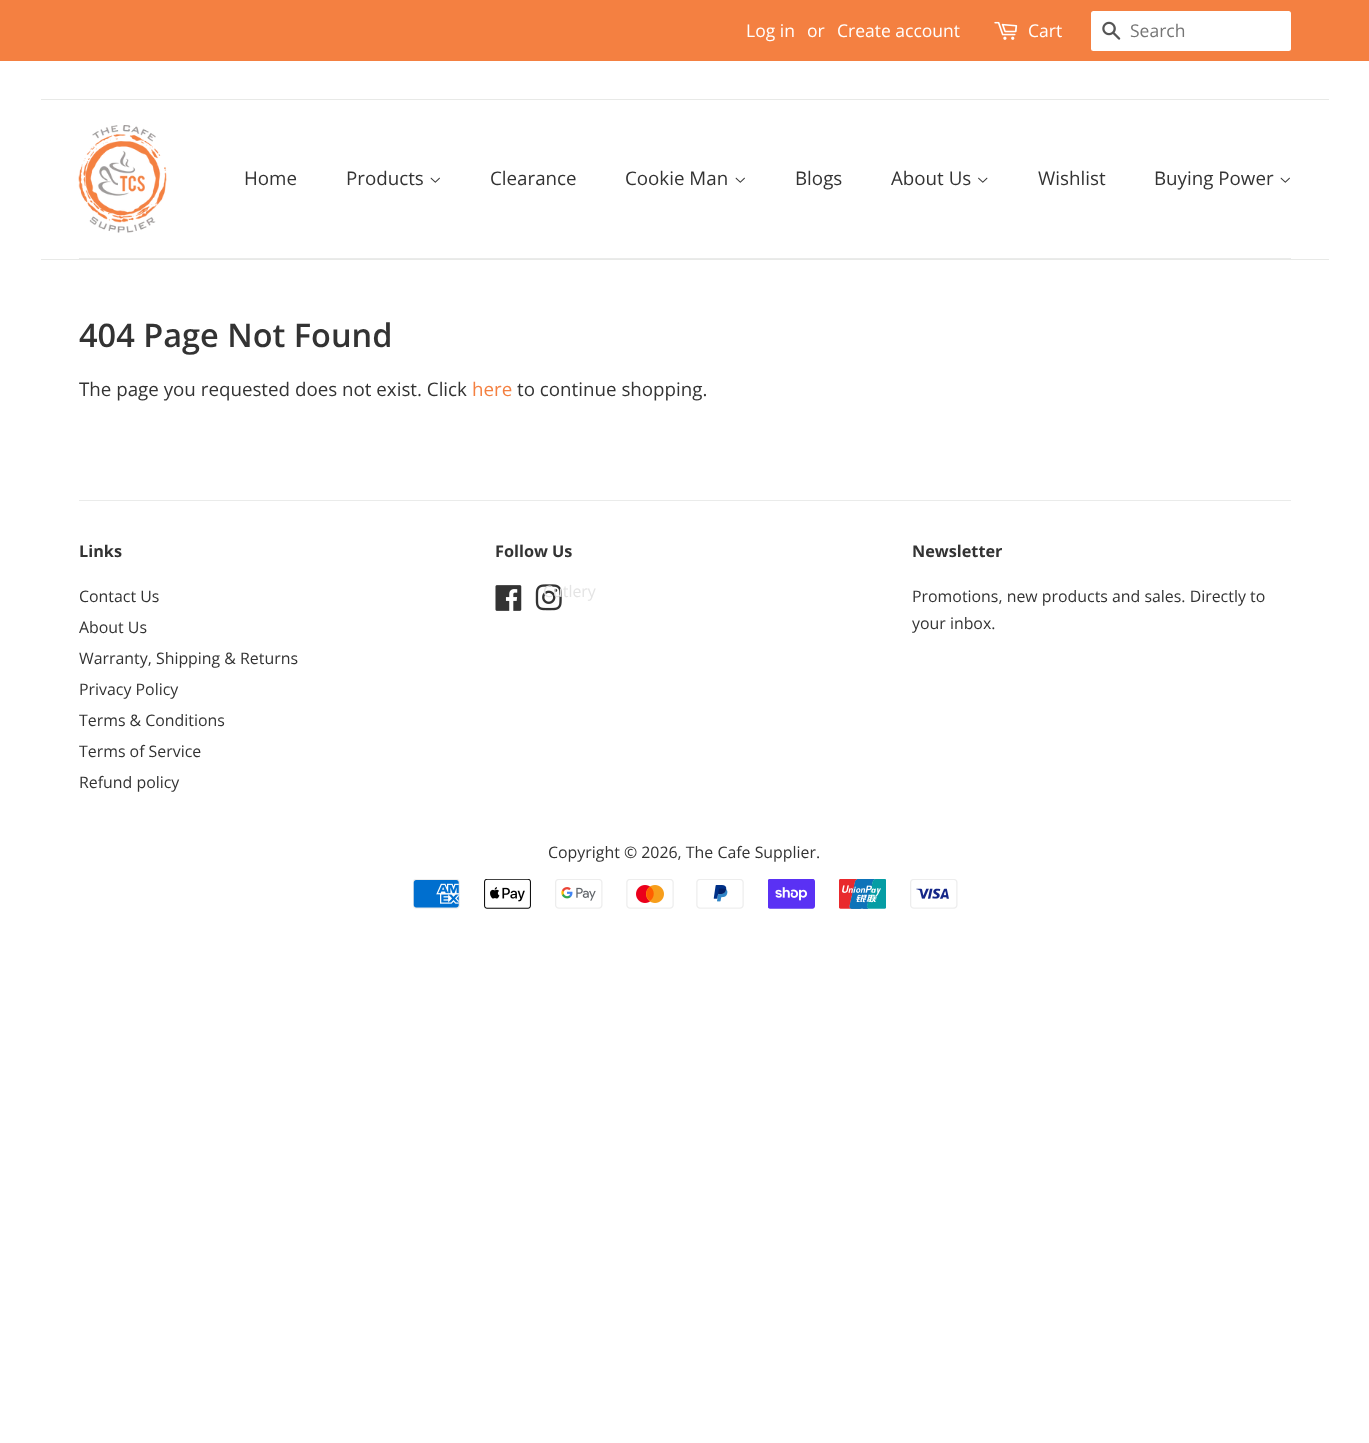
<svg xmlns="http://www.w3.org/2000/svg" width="1369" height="1443">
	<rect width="100%" height="100%" fill="#FFFFFF" />
	<rect x="0" y="0" width="1369" height="61" fill="#F48041" />
	<g font-family="Open Sans" font-size="17.5" fill="#FFFFFF">
		<text x="746" y="37">Log in</text>
		<text x="807" y="37">or</text>
		<text x="837" y="37">Create account</text>
	</g>
	<image x="994" y="21" width="24" height="19" href="assets/img1.png" />
	<text x="1028" y="37" font-family="Open Sans" font-size="17.5" fill="#FFFFFF">Cart</text>
	<rect x="1091" y="11" width="200" height="40" rx="2.5" fill="#FFFFFF" />
	<image x="1102" y="21" width="19" height="19" href="assets/img2.png" />
	<text x="1130" y="37" font-family="Open Sans" font-size="17.5" fill="#757575">Search</text>
	<rect x="41" y="99" width="1288" height="1" fill="#E8E9E7" />
	<rect x="41" y="259" width="1288" height="1" fill="#E8E9E7" />
	<rect x="79" y="258" width="1212" height="1" fill="#EAEBEA" />
	<image x="78" y="125" width="89" height="108" href="assets/img3.png" />
	<text x="346" y="185" font-family="Open Sans" font-size="18.75" fill="#333333">Products</text>
	<image x="430" y="177" width="10" height="6" href="assets/img4.png" />
	<image x="535" y="584" width="27" height="27" href="assets/img7.png" />
	<text x="543" y="597" font-family="Open Sans" font-size="15.9" fill="#E4E4E4">Cutlery</text>
	<g font-family="Open Sans" font-size="18.75" fill="#333333">
		<text x="244" y="185">Home</text>
		<text x="490" y="185">Clearance</text>
		<text x="625" y="185">Cookie Man</text>
	</g>
	<image x="735" y="177" width="10" height="6" href="assets/img4.png" />
	<g font-family="Open Sans" font-size="18.75" fill="#333333">
		<text x="795" y="185">Blogs</text>
		<text x="891" y="185">About Us</text>
	</g>
	<image x="978" y="177" width="10" height="6" href="assets/img5.png" />
	<g font-family="Open Sans" font-size="18.75" fill="#333333">
		<text x="1038" y="185">Wishlist</text>
		<text x="1154" y="185">Buying Power</text>
	</g>
	<image x="1280" y="177" width="10" height="6" href="assets/img4.png" />
	<text x="79" y="347" font-family="Open Sans" font-size="32.5" font-weight="600" fill="#333333">404 Page Not Found</text>
	<text x="79" y="396" font-family="Open Sans" font-size="18.75" fill="#333333">The page you requested does not exist. Click</text>
	<text x="472" y="396" font-family="Open Sans" font-size="18.75" fill="#F48041">here</text>
	<text x="517" y="396" font-family="Open Sans" font-size="18.75" fill="#333333">to continue shopping.</text>
	<rect x="79" y="500" width="1212" height="1" fill="#EAEBEA" />
	<text x="79" y="557" font-family="Open Sans" font-size="16.25" font-weight="700" fill="#333333">Links</text>
	<g font-family="Open Sans" font-size="15.9" fill="#333333">
		<text x="79" y="602">Contact Us</text>
		<text x="79" y="633">About Us</text>
		<text x="79" y="664">Warranty, Shipping &amp; Returns</text>
		<text x="79" y="695">Privacy Policy</text>
		<text x="79" y="726">Terms &amp; Conditions</text>
		<text x="79" y="757">Terms of Service</text>
		<text x="79" y="788">Refund policy</text>
	</g>
	<text x="495" y="557" font-family="Open Sans" font-size="16.25" font-weight="700" fill="#333333">Follow Us</text>
	<image x="495" y="585" width="27" height="26" href="assets/img6.png" />
	<text x="912" y="557" font-family="Open Sans" font-size="16.25" font-weight="700" fill="#333333">Newsletter</text>
	<g font-family="Open Sans" font-size="15.9" fill="#333333">
		<text x="912" y="602">Promotions, new products and sales. Directly to</text>
		<text x="912" y="629">your inbox.</text>
		<text x="548" y="858">Copyright © 2026, The Cafe Supplier.</text>
	</g>
	<image x="413" y="879" width="47" height="30" href="assets/img8.png" />
	<image x="484" y="879" width="47" height="30" href="assets/img9.png" />
	<image x="555" y="879" width="48" height="30" href="assets/img10.png" />
	<image x="626" y="879" width="48" height="30" href="assets/img11.png" />
	<image x="696" y="879" width="48" height="30" href="assets/img12.png" />
	<image x="768" y="879" width="47" height="30" href="assets/img13.png" />
	<image x="839" y="879" width="47" height="30" href="assets/img14.png" />
	<image x="910" y="879" width="48" height="30" href="assets/img15.png" />
</svg>
